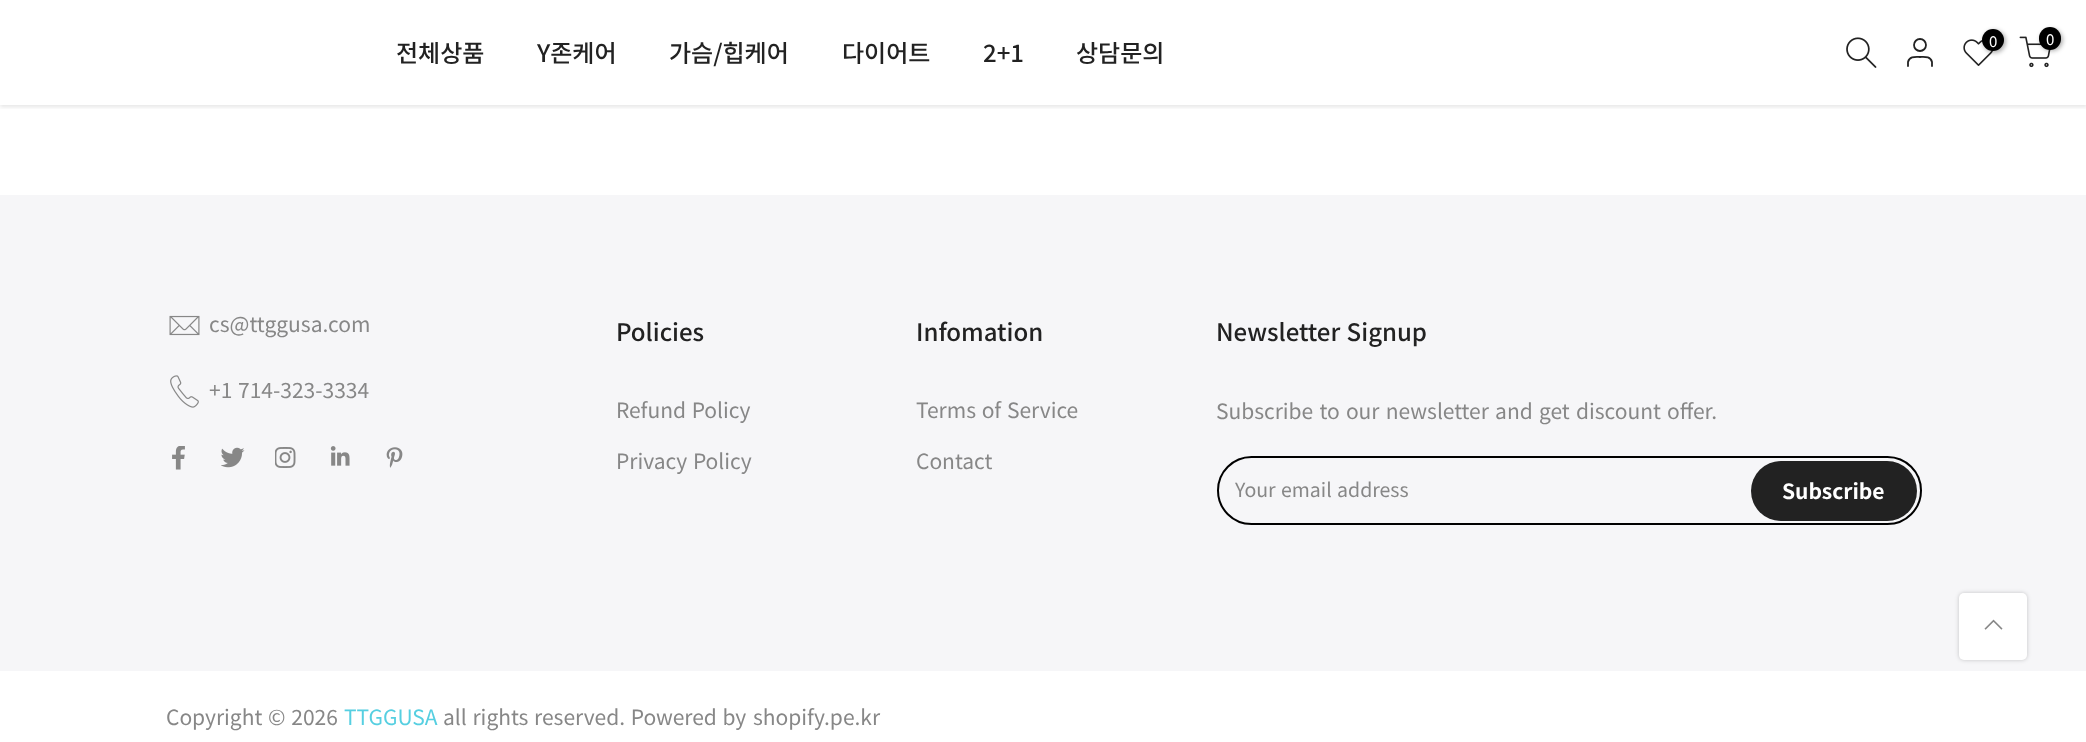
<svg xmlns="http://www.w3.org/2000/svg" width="2086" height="742">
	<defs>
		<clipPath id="clip1"><rect x="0" y="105" width="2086" height="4" /></clipPath>
	</defs>
	<rect width="100%" height="100%" fill="#FFFFFF" />
	<g clip-path="url(#clip1)">
		<rect x="0" y="2" width="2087" height="105" fill="#000000" fill-opacity="0.1" filter="blur(2px)" />
	</g>
	<g font-family="Noto Sans KR" font-size="24" font-weight="500" fill="#222222">
		<text x="396" y="62">전체상품</text>
		<text x="537" y="62">Y존케어</text>
		<text x="669" y="62">가슴/힙케어</text>
		<text x="842" y="62">다이어트</text>
		<text x="983" y="62">2+1</text>
		<text x="1076" y="62">상담문의</text>
	</g>
	<image x="1846" y="37" width="31" height="31" href="assets/img1.png" />
	<circle cx="1920" cy="45" r="6" fill="none" stroke="#222222" stroke-width="1.8" />
	<path d="M1932 66V62C1930.5 56 1924.5 57 1920 57C1915.5 57 1909.5 56 1908 62V66" fill="none" stroke="#222222" stroke-width="1.8" stroke-linecap="round" stroke-linejoin="round" />
	<image x="1963" y="39" width="31" height="27" href="assets/img2.png" />
	<rect x="1983" y="30" width="23" height="23" rx="11.5" fill="#000000" fill-opacity="0.3" filter="blur(2px)" />
	<circle cx="1993" cy="40" r="11" fill="#000000" />
	<text x="1989" y="47" font-family="Noto Sans KR" font-size="15" fill="#FFFFFF">0</text>
	<image x="2019" y="36" width="32" height="32" href="assets/img3.png" />
	<rect x="2040" y="29" width="23" height="22" rx="11" fill="#000000" fill-opacity="0.3" filter="blur(2px)" />
	<rect x="2039" y="27" width="22" height="23" rx="11" fill="#000000" />
	<text x="2046" y="45" font-family="Noto Sans KR" font-size="15" fill="#FFFFFF">0</text>
	<rect x="0" y="195" width="2086" height="476" fill="#F6F6F8" />
	<image x="169" y="315" width="31" height="21" href="assets/img4.png" />
	<text x="209" y="332" font-family="Noto Sans KR" font-size="21" fill="#878787">cs@ttggusa.com</text>
	<image x="170" y="375" width="29" height="33" href="assets/img5.png" />
	<text x="209" y="398" word-spacing="1" font-family="Noto Sans KR" font-size="21" fill="#878787">+1 714-323-3334</text>
	<image x="172" y="446" width="13" height="24" href="assets/img6.png" />
	<image x="221" y="447" width="24" height="21" href="assets/img7.png" />
	<image x="275" y="447" width="21" height="21" href="assets/img8.png" />
	<image x="330" y="446" width="20" height="20" href="assets/img9.png" />
	<image x="386" y="447" width="17" height="21" href="assets/img10.png" />
	<text x="616" y="341" font-family="Noto Sans KR" font-size="24" font-weight="500" fill="#222222">Policies</text>
	<g font-family="Noto Sans KR" font-size="21" fill="#878787">
		<text x="616" y="418" word-spacing="1">Refund Policy</text>
		<text x="616" y="469" word-spacing="1">Privacy Policy</text>
	</g>
	<text x="916" y="341" font-family="Noto Sans KR" font-size="24" font-weight="500" fill="#222222">Infomation</text>
	<g font-family="Noto Sans KR" font-size="21" fill="#878787">
		<text x="916" y="418" word-spacing="1">Terms of Service</text>
		<text x="916" y="469">Contact</text>
	</g>
	<text x="1216" y="341" word-spacing="1" font-family="Noto Sans KR" font-size="24" font-weight="500" fill="#222222">Newsletter Signup</text>
	<text x="1216" y="419" word-spacing="1.5" font-family="Noto Sans KR" font-size="21" fill="#878787">Subscribe to our newsletter and get discount offer.</text>
	<rect x="1218" y="457" width="703" height="67" rx="33.5" fill="none" stroke="#000000" stroke-width="2" />
	<text x="1235" y="497" word-spacing="1" font-family="Noto Sans KR" font-size="19.5" fill="#878787">Your email address</text>
	<rect x="1751" y="461" width="166" height="60" rx="30" fill="#222222" />
	<text x="1782" y="499" font-family="Noto Sans KR" font-size="21" font-weight="700" fill="#FFFFFF">Subscribe</text>
	<text x="166" y="725" word-spacing="1" font-family="Noto Sans KR" font-size="21" fill="#878787">Copyright © 2026</text>
	<text x="344" y="725" font-family="Noto Sans KR" font-size="21" fill="#56CFE1">TTGGUSA</text>
	<g font-family="Noto Sans KR" font-size="21" fill="#878787">
		<text x="443" y="725" word-spacing="1">all rights reserved. Powered by</text>
		<text x="753" y="725">shopify.pe.kr</text>
	</g>
	<rect x="1959" y="593" width="68" height="67" rx="5" fill="#000000" fill-opacity="0.2" filter="blur(2px)" />
	<rect x="1959" y="593" width="68" height="67" rx="5" fill="#FFFFFF" />
	<image x="1984" y="619" width="19" height="11" href="assets/img11.png" />
</svg>
